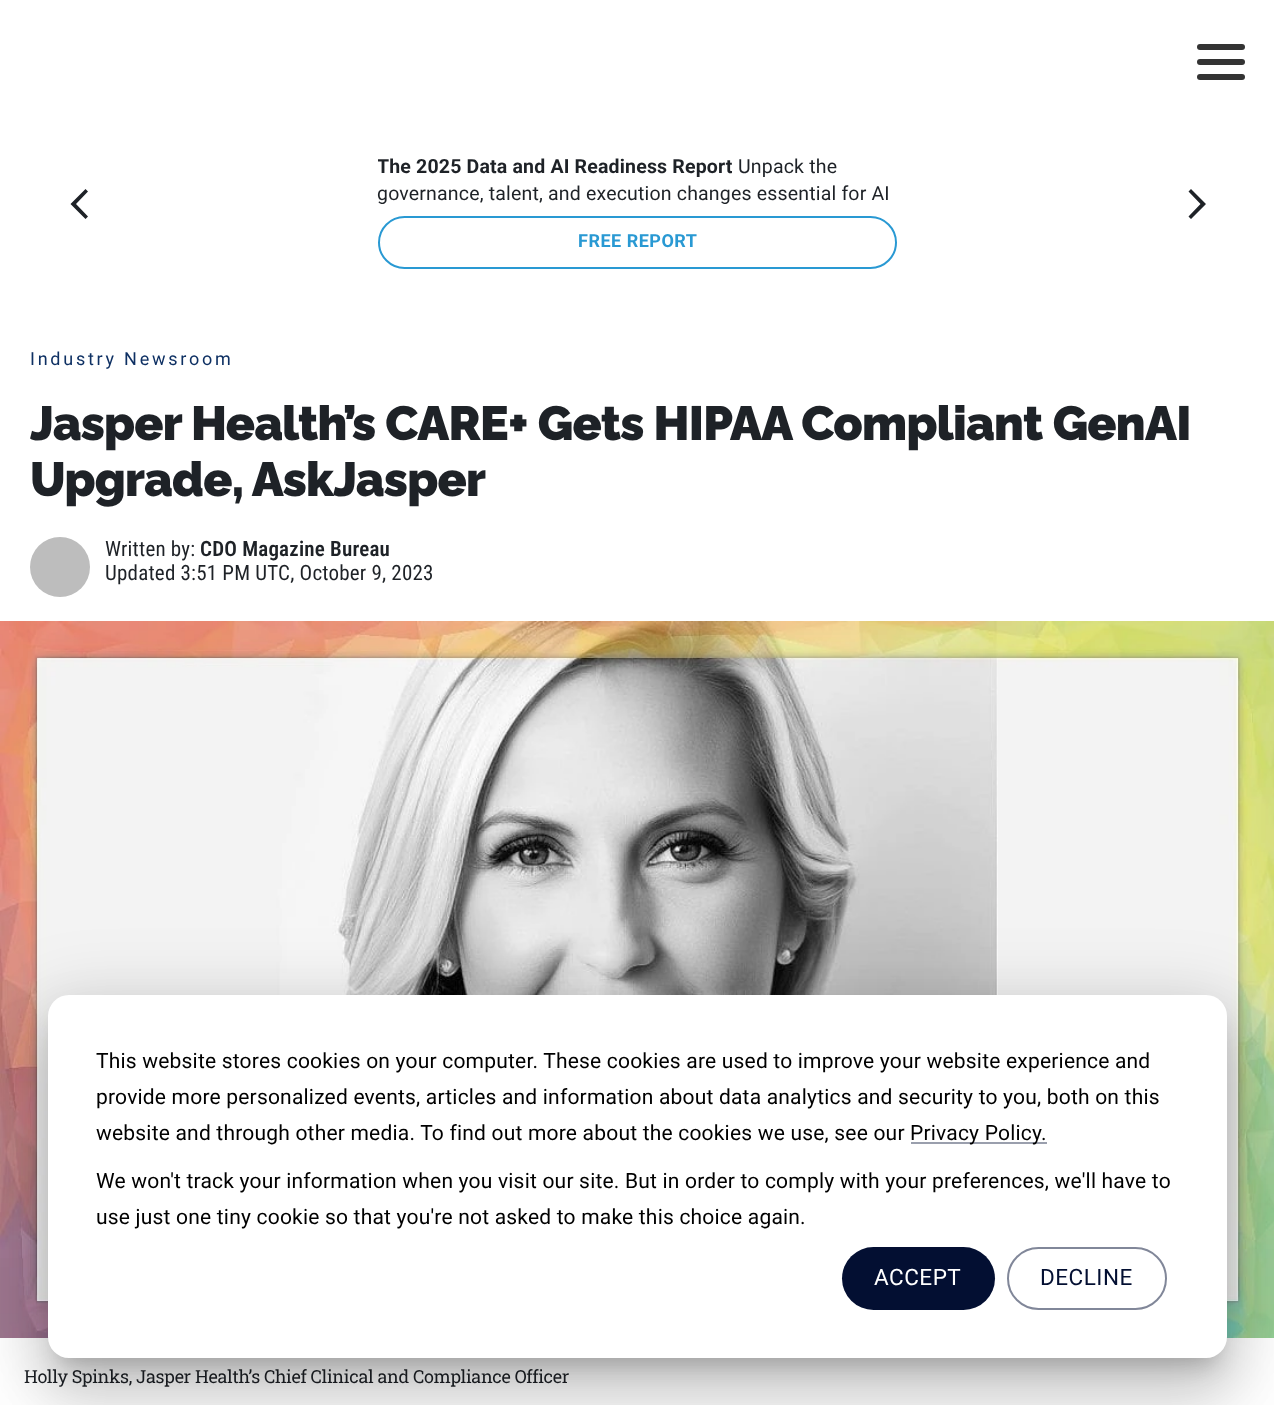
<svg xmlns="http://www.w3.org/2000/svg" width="1274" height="1405">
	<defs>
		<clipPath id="clip1"><rect x="378" y="155" width="519" height="54" /></clipPath>
	</defs>
	<rect width="100%" height="100%" fill="#FFFFFF" />
	<rect x="1197" y="44" width="48" height="6" rx="3" fill="#333333" />
	<rect x="1197" y="59" width="48" height="6" rx="3" fill="#333333" />
	<rect x="1197" y="74" width="48" height="6" rx="3" fill="#333333" />
	<path d="M88 191.5L85.5 189L70.5 204L85.5 219L88 216.5L76 204Z" fill="#1E2227" />
	<g clip-path="url(#clip1)">
		<text x="377" y="173" font-family="Roboto" font-size="19.5" font-weight="700" letter-spacing="0.18" fill="#1E2227">The 2025 Data and AI Readiness Report</text>
	</g>
	<g font-family="Roboto" font-size="19.5" letter-spacing="0.18" fill="#1E2227">
		<text x="738" y="173">Unpack the</text>
		<text x="377" y="200">governance, talent, and execution changes essential for AI</text>
	</g>
	<rect x="379" y="217" width="517" height="51" rx="25.5" fill="none" stroke="#2999D3" stroke-width="2" />
	<text x="578" y="247" font-family="Roboto" font-size="18" font-weight="700" letter-spacing="0.5" fill="#2999D3">FREE REPORT</text>
	<path d="M1188.5 216.5L1191 219L1206 204L1191 189L1188.5 191.5L1200.5 204Z" fill="#1E2227" />
	<text x="30" y="365" font-family="Roboto" font-size="18" letter-spacing="2.75" fill="#0E3063">Industry Newsroom</text>
	<g font-family="Raleway" font-size="48" font-weight="900" letter-spacing="-0.75" fill="#1E2227">
		<text x="30" y="440">Jasper Health’s CARE+ Gets HIPAA Compliant GenAI</text>
		<text x="30" y="496">Upgrade, AskJasper</text>
	</g>
	<circle cx="60" cy="567" r="30" fill="#BDBDBD" />
	<text x="105" y="556" font-family="Roboto Condensed" font-size="21" letter-spacing="0.2" fill="#1E2227">Written by:</text>
	<text x="200" y="556" font-family="Roboto Condensed" font-size="21" font-weight="600" letter-spacing="0.2" fill="#1E2227">CDO Magazine Bureau</text>
	<text x="105" y="580" font-family="Roboto Condensed" font-size="21" letter-spacing="0.2" fill="#1E2227">Updated 3:51 PM UTC, October 9, 2023</text>
	<image x="0" y="621" width="1274" height="717" href="assets/img1.png" />
	<text x="24" y="1383" font-family="Roboto Slab" font-size="18" letter-spacing="-0.35" fill="#1E2227">Holly Spinks, Jasper Health’s Chief Clinical and Compliance Officer</text>
	<rect x="36" y="996" width="1203" height="387" rx="33" fill="#000000" fill-opacity="0.12" filter="blur(34.5px)" />
	<rect x="44" y="1026" width="1188" height="372" rx="26" fill="#000000" fill-opacity="0.14" filter="blur(28.5px)" />
	<rect x="59" y="1022" width="1158" height="342" rx="11" fill="#000000" fill-opacity="0.2" filter="blur(11px)" />
	<rect x="48" y="995" width="1179" height="363" rx="21" fill="#FFFFFF" />
	<g font-family="Roboto" font-size="21" letter-spacing="0.2" fill="#000000">
		<text x="96" y="1068">This website stores cookies on your computer. These cookies are used to improve your website experience and</text>
		<text x="96" y="1104">provide more personalized events, articles and information about data analytics and security to you, both on this</text>
		<text x="96" y="1140">website and through other media. To find out more about the cookies we use, see our</text>
	</g>
	<rect x="911" y="1142" width="136" height="2" fill="#9A9FAD" />
	<g font-family="Roboto" font-size="21" letter-spacing="0.2" fill="#000000">
		<text x="910" y="1140">Privacy Policy.</text>
		<text x="96" y="1188">We won't track your information when you visit our site. But in order to comply with your preferences, we'll have to</text>
		<text x="96" y="1224">use just one tiny cookie so that you're not asked to make this choice again.</text>
	</g>
	<rect x="842" y="1247" width="153" height="63" rx="31.5" fill="#030F32" />
	<text x="874" y="1285" font-family="Roboto" font-size="22.5" letter-spacing="0.5" fill="#FFFFFF">ACCEPT</text>
	<rect x="1008" y="1248" width="158" height="61" rx="30.5" fill="none" stroke="#818799" stroke-width="2" />
	<text x="1040" y="1285" font-family="Roboto" font-size="22.5" letter-spacing="0.5" fill="#030F32">DECLINE</text>
</svg>
